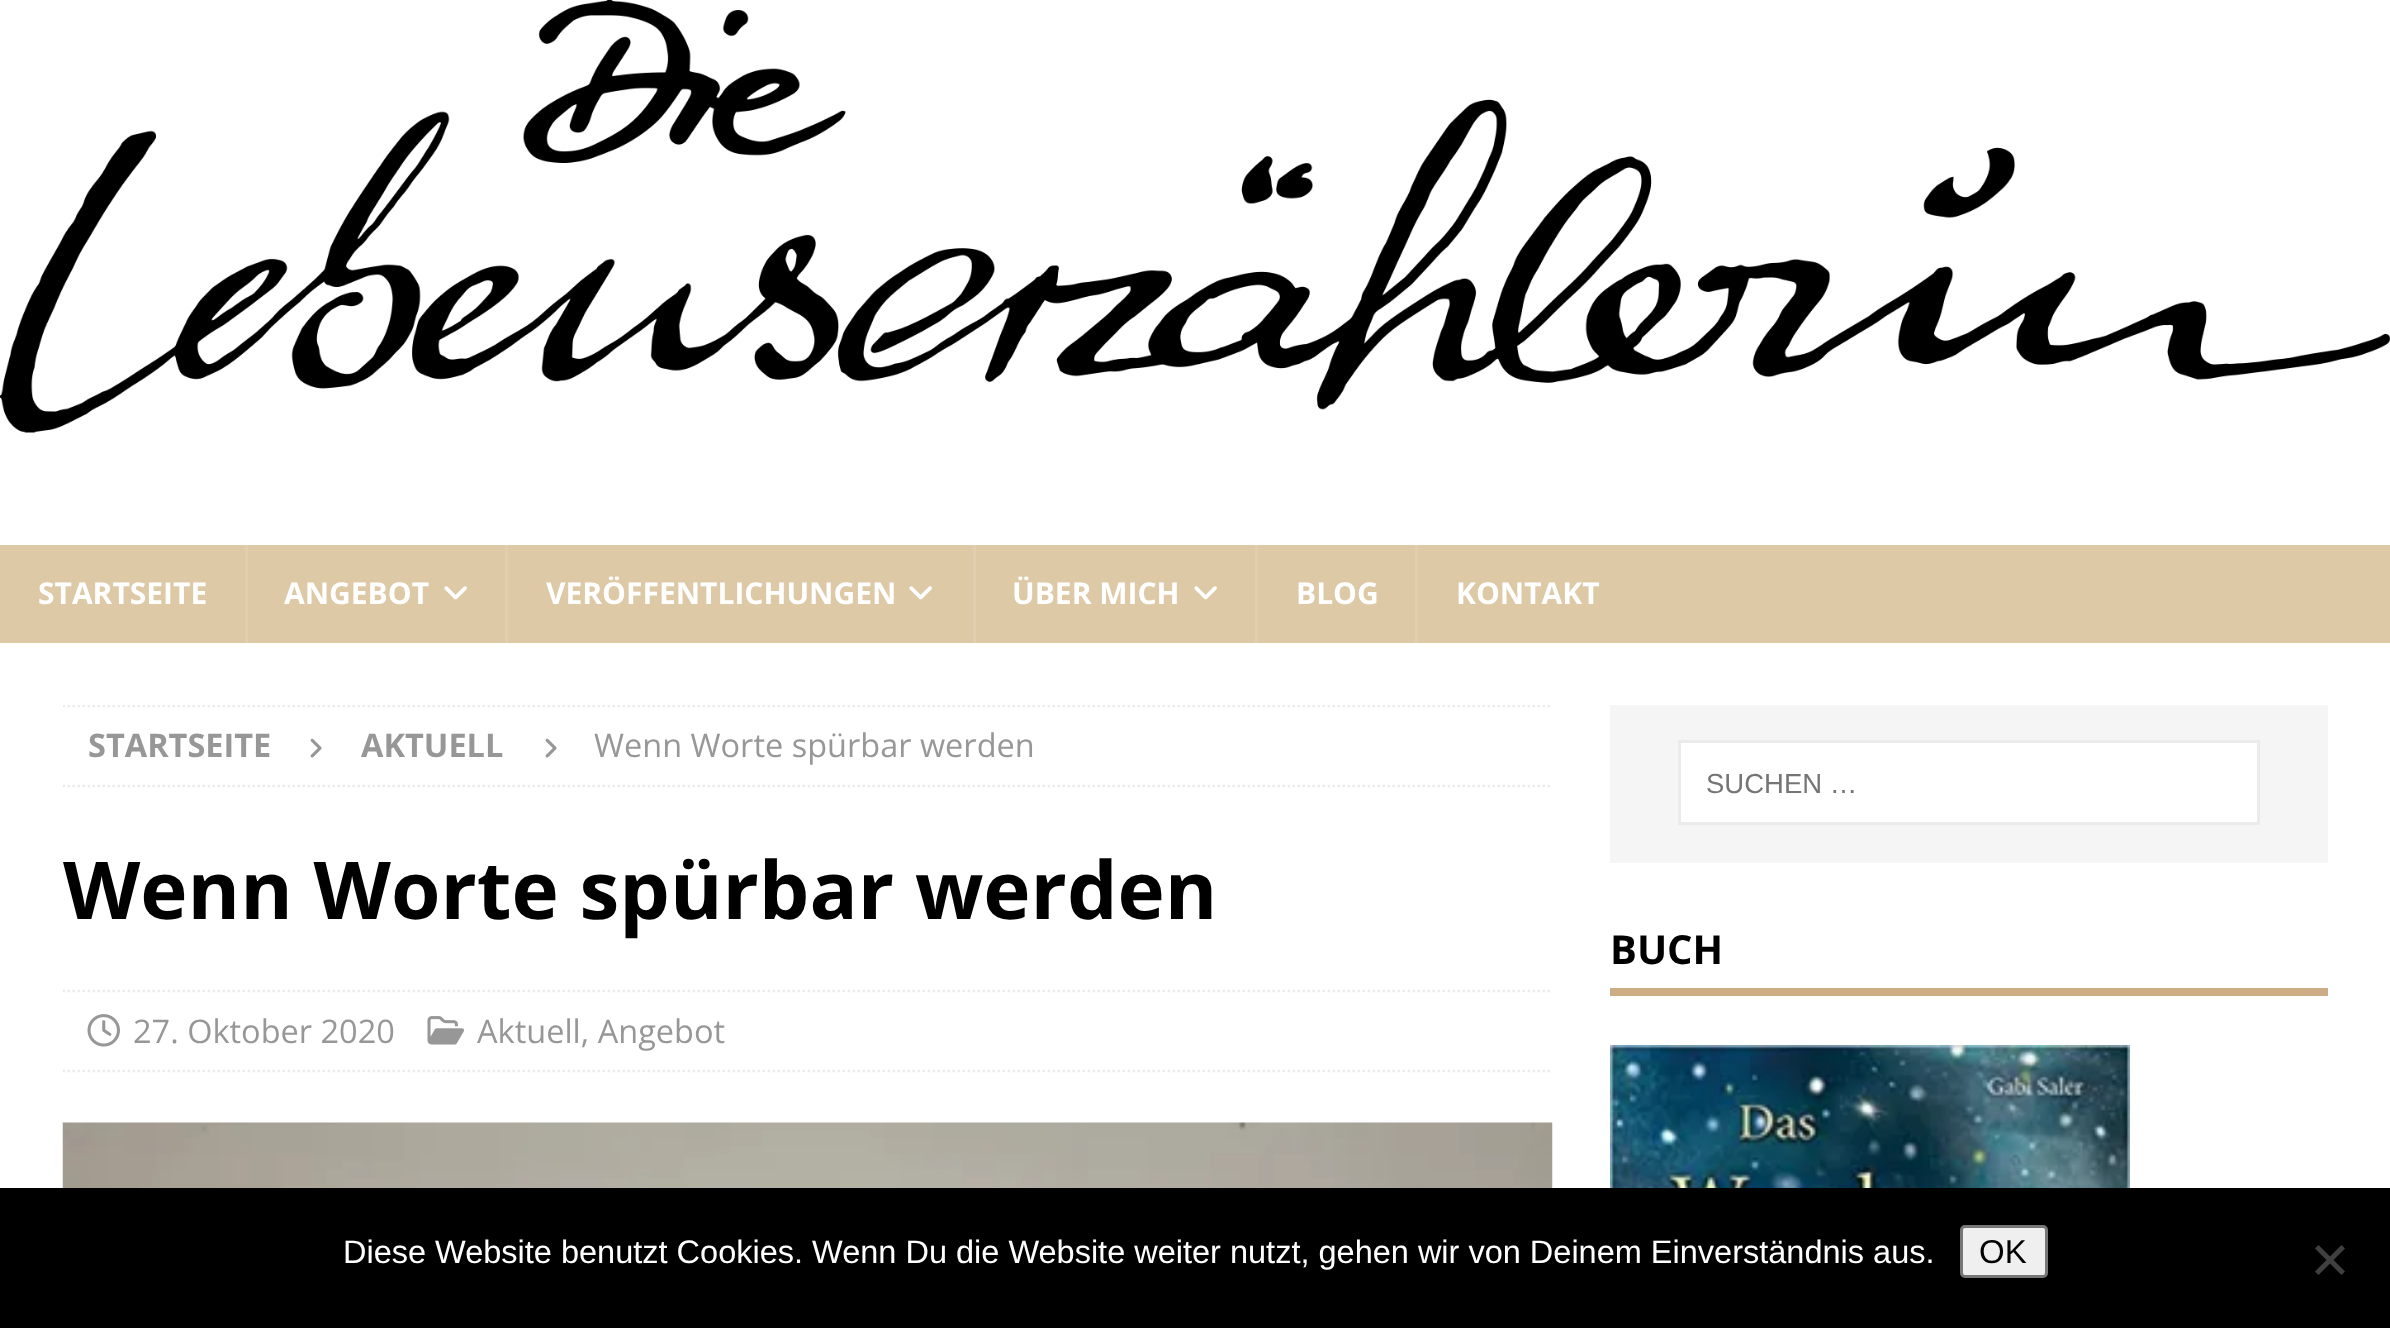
<svg xmlns="http://www.w3.org/2000/svg" width="2390" height="1328">
	<defs>
		<clipPath id="clip1"><rect x="63" y="705" width="1490" height="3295" /></clipPath>
	</defs>
	<rect width="100%" height="100%" fill="#FFFFFF" />
	<image x="0" y="0" width="2390" height="433" href="assets/img1.png" />
	<rect x="0" y="545" width="2390" height="98" fill="#DDC9A6" />
	<text x="38" y="604" font-family="Open Sans" font-size="30" font-weight="700" fill="#FFFFFF">STARTSEITE</text>
	<rect x="245" y="545" width="3" height="98" fill="#E0CEAF" />
	<text x="284" y="604" font-family="Open Sans" font-size="30" font-weight="700" fill="#FFFFFF">ANGEBOT</text>
	<image x="444" y="586" width="23" height="14" href="assets/img2.png" />
	<rect x="505" y="545" width="3" height="98" fill="#E0CEAF" />
	<text x="546" y="604" font-family="Open Sans" font-size="30" font-weight="700" fill="#FFFFFF">VERÖFFENTLICHUNGEN</text>
	<image x="909" y="586" width="23" height="14" href="assets/img2.png" />
	<rect x="973" y="545" width="3" height="98" fill="#E0CEAF" />
	<text x="1012" y="604" font-family="Open Sans" font-size="30" font-weight="700" fill="#FFFFFF">ÜBER MICH</text>
	<image x="1194" y="586" width="23" height="14" href="assets/img2.png" />
	<rect x="1255" y="545" width="3" height="98" fill="#E0CEAF" />
	<text x="1296" y="604" font-family="Open Sans" font-size="30" font-weight="700" fill="#FFFFFF">BLOG</text>
	<rect x="1415" y="545" width="3" height="98" fill="#E0CEAF" />
	<text x="1456" y="604" font-family="Open Sans" font-size="30" font-weight="700" fill="#FFFFFF">KONTAKT</text>
	<g clip-path="url(#clip1)">
		<path d="M62.5 706H1552.5" fill="none" stroke="#EBEBEB" stroke-width="2.5" stroke-dasharray="2.5 2.5" />
		<path d="M62.5 786H1552.5" fill="none" stroke="#EBEBEB" stroke-width="2.5" stroke-dasharray="2.5 2.5" />
	</g>
	<text x="88" y="757" font-family="Open Sans" font-size="32.5" font-weight="700" fill="#979797">STARTSEITE</text>
	<image x="310" y="738" width="12" height="20" href="assets/img3.png" />
	<text x="361" y="757" font-family="Open Sans" font-size="32.5" font-weight="700" fill="#979797">AKTUELL</text>
	<image x="545" y="738" width="12" height="20" href="assets/img3.png" />
	<text x="594" y="757" font-family="Open Sans" font-size="32.5" fill="#979797">Wenn Worte spürbar werden</text>
	<g clip-path="url(#clip1)">
		<text x="63" y="919" font-family="Open Sans" font-size="80" font-weight="700" fill="#000000">Wenn Worte spürbar werden</text>
		<path d="M62.5 991H1552.5" fill="none" stroke="#EBEBEB" stroke-width="2.5" stroke-dasharray="2.5 2.5" />
		<path d="M62.5 1071H1552.5" fill="none" stroke="#EBEBEB" stroke-width="2.5" stroke-dasharray="2.5 2.5" />
	</g>
	<image x="87" y="1014" width="33" height="33" href="assets/img4.png" />
	<text x="133" y="1043" font-family="Open Sans" font-size="32.5" fill="#979797">27. Oktober 2020</text>
	<image x="427" y="1016" width="37" height="29" href="assets/img5.png" />
	<text x="477" y="1043" font-family="Open Sans" font-size="32.5" fill="#979797">Aktuell, Angebot</text>
	<image x="62" y="1122" width="1491" height="66" href="assets/img6.png" />
	<rect x="1610" y="705" width="718" height="158" fill="#F5F5F5" />
	<rect x="1679.5" y="741.5" width="579" height="82" fill="#FFFFFF" stroke="#EBEBEB" stroke-width="3" />
	<text x="1706" y="793" font-family="Liberation Sans" font-size="27.5" fill="#757575">SUCHEN …</text>
	<rect x="1610" y="988" width="718" height="8" fill="#CCAD86" />
	<text x="1610" y="964" font-family="Open Sans" font-size="40" font-weight="700" fill="#000000">BUCH</text>
	<image x="1610" y="1045" width="520" height="143" href="assets/img7.png" />
	<rect x="0" y="1188" width="2390" height="140" fill="#000000" />
	<text x="343" y="1263" font-family="Liberation Sans" font-size="32.5" fill="#FFFFFF">Diese Website benutzt Cookies. Wenn Du die Website weiter nutzt, gehen wir von Deinem Einverständnis aus.</text>
	<rect x="1961.5" y="1226.5" width="85" height="50" rx="3.5" fill="#EFEFEF" stroke="#767676" stroke-width="3" />
	<text x="1979" y="1263" font-family="Liberation Sans" font-size="33" fill="#000000">OK</text>
	<path d="M2341.5 1245L2345 1248.5L2318.5 1275L2315 1271.5Z" fill="#404040" />
	<path d="M2315 1248.5L2318.5 1245L2345 1271.5L2341.5 1275Z" fill="#404040" />
</svg>
